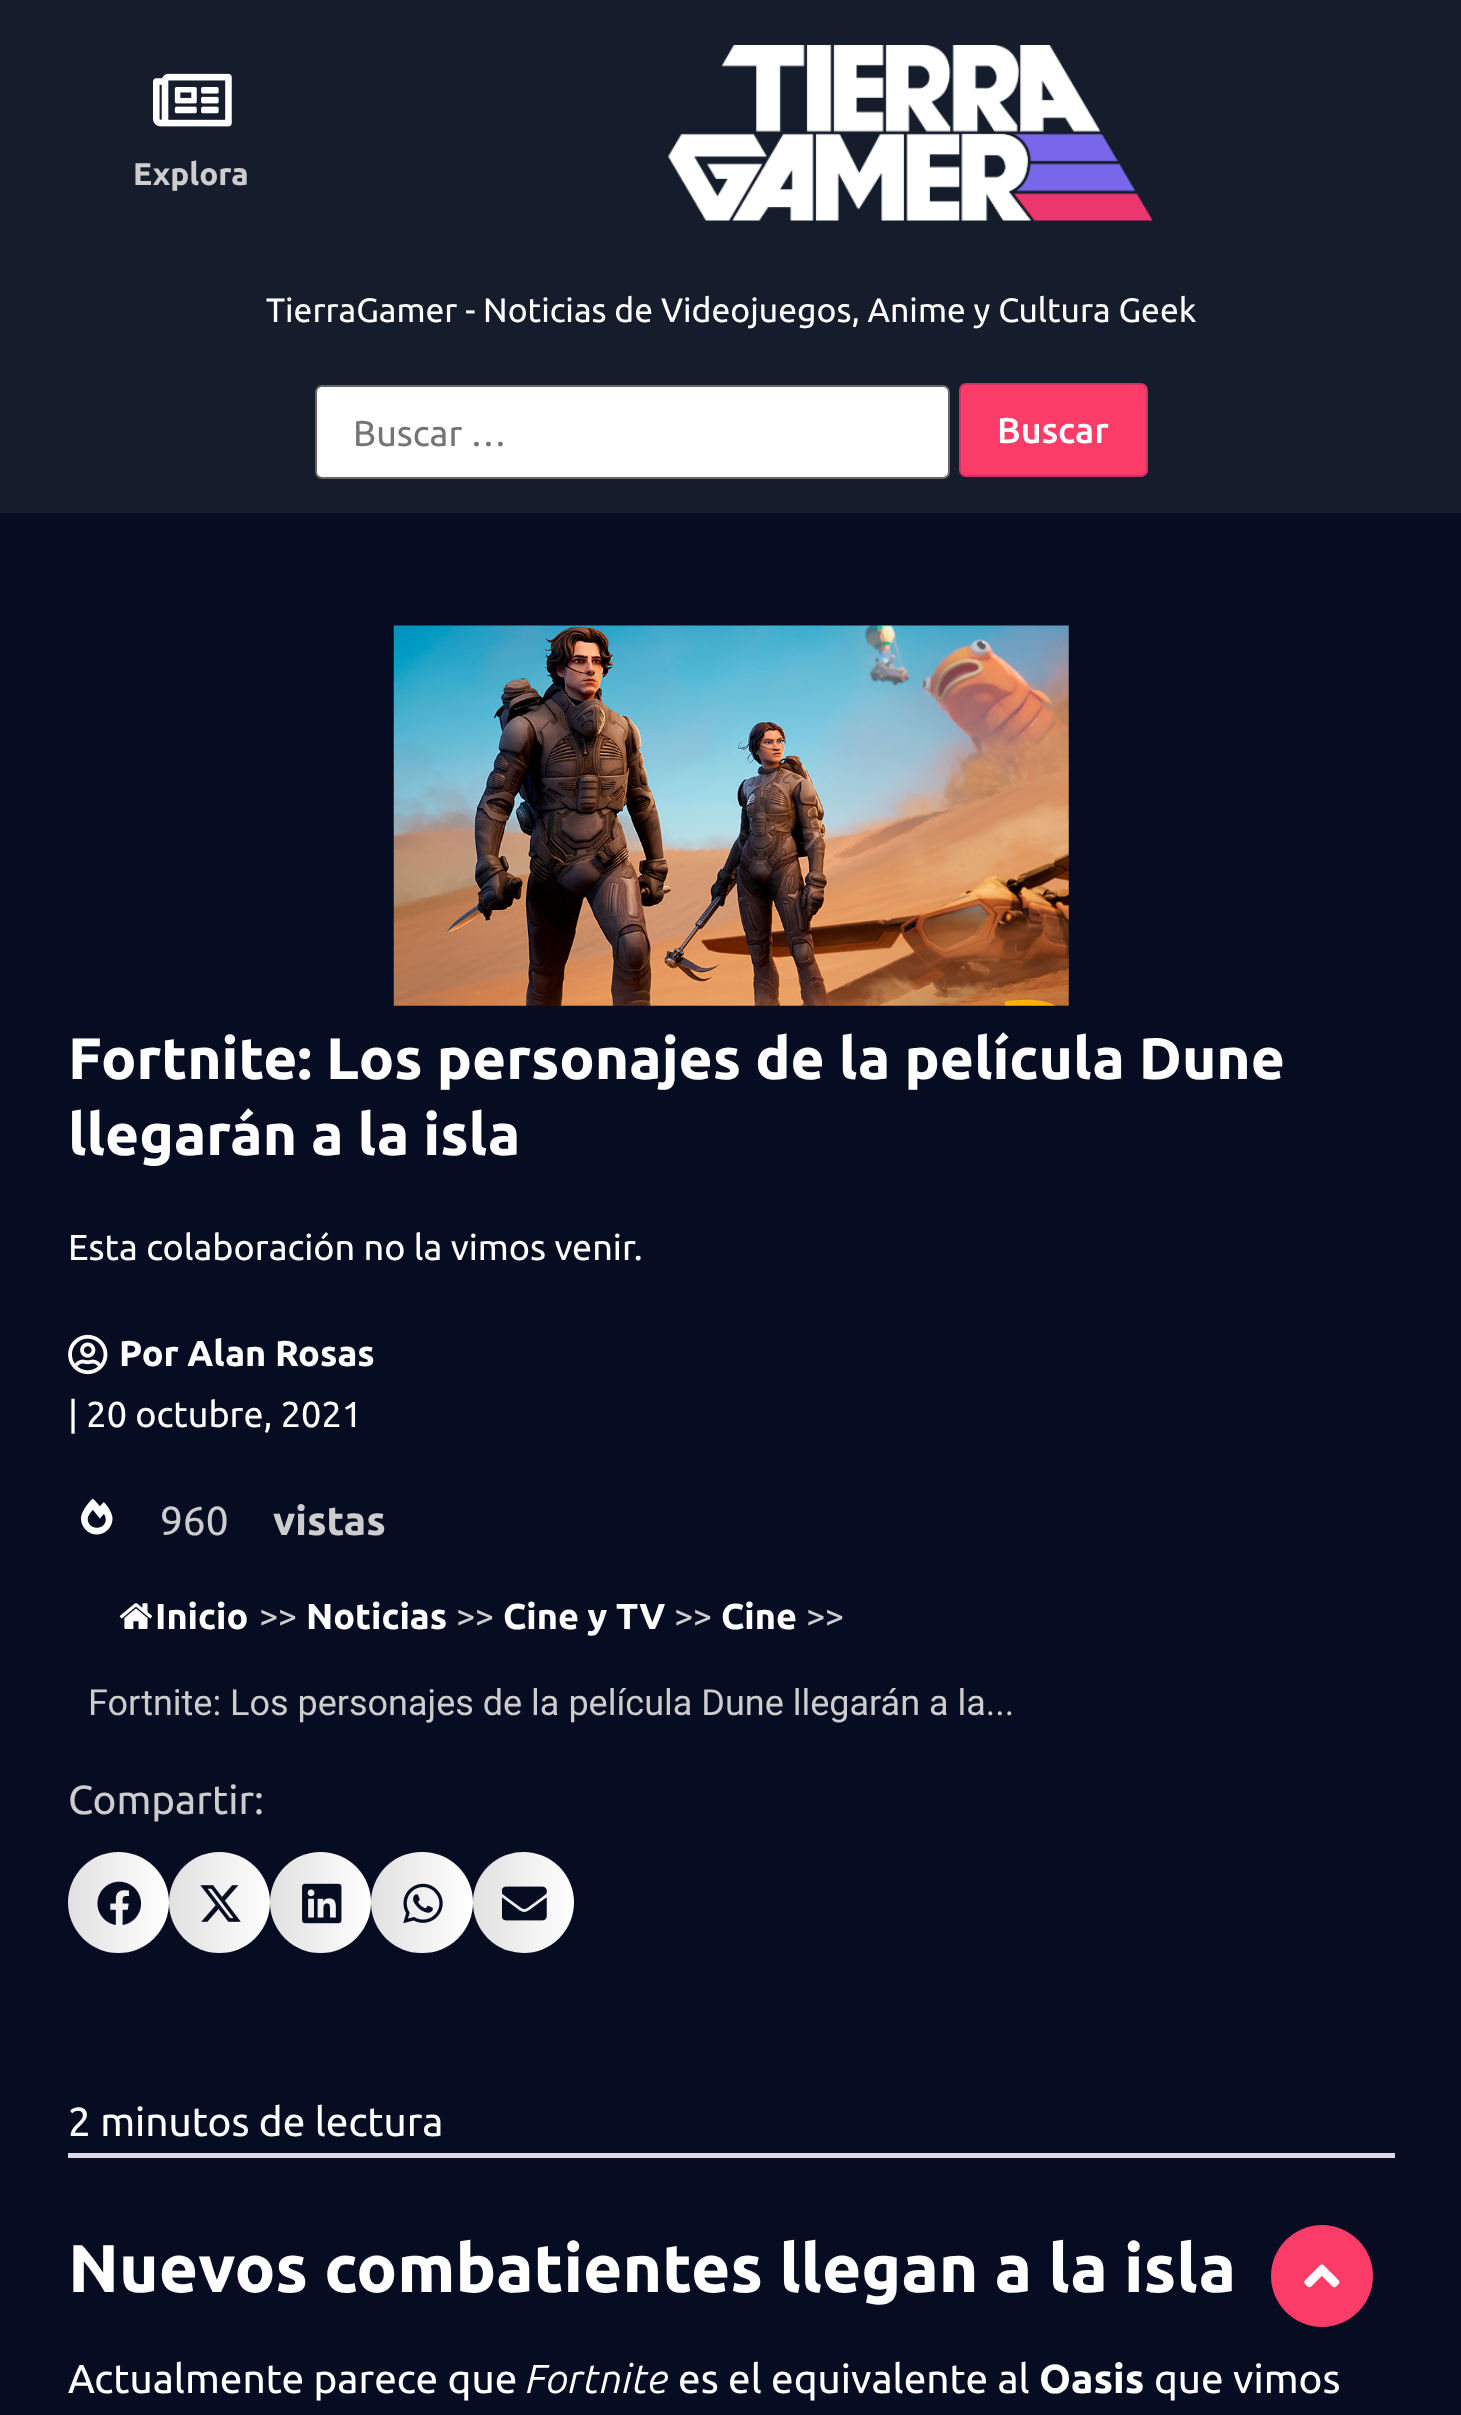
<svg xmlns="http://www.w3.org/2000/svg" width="1461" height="2415">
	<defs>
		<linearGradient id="g1" gradientUnits="userSpaceOnUse" x1="68" y1="1902" x2="169" y2="1902"><stop offset="0" stop-color="#000000" stop-opacity="0.12" /><stop offset="1" stop-color="#000000" stop-opacity="0" /></linearGradient>
		<linearGradient id="g2" gradientUnits="userSpaceOnUse" x1="169" y1="1902" x2="270" y2="1902"><stop offset="0" stop-color="#000000" stop-opacity="0.12" /><stop offset="1" stop-color="#000000" stop-opacity="0" /></linearGradient>
		<linearGradient id="g3" gradientUnits="userSpaceOnUse" x1="270" y1="1902" x2="371" y2="1902"><stop offset="0" stop-color="#000000" stop-opacity="0.12" /><stop offset="1" stop-color="#000000" stop-opacity="0" /></linearGradient>
		<linearGradient id="g4" gradientUnits="userSpaceOnUse" x1="371" y1="1902" x2="473" y2="1902"><stop offset="0" stop-color="#000000" stop-opacity="0.12" /><stop offset="1" stop-color="#000000" stop-opacity="0" /></linearGradient>
		<linearGradient id="g5" gradientUnits="userSpaceOnUse" x1="473" y1="1902" x2="574" y2="1902"><stop offset="0" stop-color="#000000" stop-opacity="0.12" /><stop offset="1" stop-color="#000000" stop-opacity="0" /></linearGradient>
	</defs>
	<rect width="100%" height="100%" fill="#060C22" />
	<rect x="0" y="0" width="1461" height="513" fill="#151C2B" />
	<image x="153" y="73" width="79" height="54" href="assets/img1.png" />
	<text x="133" y="185" font-family="Ubuntu" font-size="31.5" font-weight="700" fill="#CDCDCD">Explora</text>
	<image x="668" y="45" width="485" height="176" href="assets/img2.png" />
	<text x="266" y="322" font-family="Ubuntu" font-size="33.75" fill="#FFFFFF">TierraGamer - Noticias de Videojuegos, Anime y Cultura Geek</text>
	<rect x="316" y="386" width="633" height="92" rx="6" fill="#FFFFFF" stroke="#666666" stroke-width="2" />
	<text x="353" y="446" font-family="Ubuntu" font-size="36" fill="#757575">Buscar …</text>
	<rect x="960" y="384" width="187" height="92" rx="6" fill="#FC3C68" stroke="#CC3366" stroke-width="2" />
	<text x="997" y="443" font-family="Ubuntu" font-size="36" font-weight="500" fill="#FFFFFF">Buscar</text>
	<image x="393" y="625" width="676" height="381" href="assets/img3.png" />
	<g font-family="Ubuntu" font-size="58.5" font-weight="700" fill="#FFFFFF">
		<text x="68" y="1079">Fortnite: Los personajes de la película Dune</text>
		<text x="68" y="1155">llegarán a la isla</text>
	</g>
	<text x="68" y="1260" font-family="Ubuntu" font-size="36" fill="#FFFFFF">Esta colaboración no la vimos venir.</text>
	<image x="68" y="1334" width="40" height="41" href="assets/img4.png" />
	<text x="119" y="1366" font-family="Ubuntu" font-size="36" font-weight="700" fill="#FFFFFF">Por Alan Rosas</text>
	<text x="68" y="1427" font-family="Ubuntu" font-size="36" fill="#FFFFFF">| 20 octubre, 2021</text>
	<image x="81" y="1499" width="32" height="36" href="assets/img5.png" />
	<text x="160" y="1535" font-family="Ubuntu" font-size="40.5" fill="#CDCDCD">960</text>
	<text x="273" y="1535" font-family="Ubuntu" font-size="40.5" font-weight="700" fill="#CDCDCD">vistas</text>
	<image x="119" y="1603" width="34" height="26" href="assets/img6.png" />
	<text x="155" y="1629" font-family="Ubuntu" font-size="36" font-weight="700" fill="#FFFFFF">Inicio</text>
	<text x="259" y="1629" font-family="Roboto" font-size="36" fill="#CDCDCD">&gt;&gt;</text>
	<text x="306" y="1629" font-family="Ubuntu" font-size="36" font-weight="700" fill="#FFFFFF">Noticias</text>
	<text x="456" y="1629" font-family="Roboto" font-size="36" fill="#CDCDCD">&gt;&gt;</text>
	<text x="503" y="1629" font-family="Ubuntu" font-size="36" font-weight="700" fill="#FFFFFF">Cine y TV</text>
	<text x="674" y="1629" font-family="Roboto" font-size="36" fill="#CDCDCD">&gt;&gt;</text>
	<text x="721" y="1629" font-family="Ubuntu" font-size="36" font-weight="700" fill="#FFFFFF">Cine</text>
	<g font-family="Roboto" font-size="36" fill="#CDCDCD">
		<text x="806" y="1629">&gt;&gt;</text>
		<text x="88" y="1715">Fortnite: Los personajes de la película Dune llegarán a la...</text>
	</g>
	<text x="68" y="1814" font-family="Ubuntu" font-size="40.5" fill="#CDCDCD">Compartir:</text>
	<circle cx="118.5" cy="1902.5" r="50.5" fill="#FFFFFF" />
	<circle cx="118.5" cy="1902.5" r="50.5" fill="url(#g1)" />
	<image x="97" y="1881" width="45" height="44" href="assets/img7.png" />
	<circle cx="219.5" cy="1902.5" r="50.5" fill="#FFFFFF" />
	<circle cx="219.5" cy="1902.5" r="50.5" fill="url(#g2)" />
	<image x="200" y="1885" width="41" height="37" href="assets/img8.png" />
	<circle cx="320.5" cy="1902.5" r="50.5" fill="#FFFFFF" />
	<circle cx="320.5" cy="1902.5" r="50.5" fill="url(#g3)" />
	<image x="302" y="1883" width="40" height="41" href="assets/img9.png" />
	<rect x="371" y="1852" width="102" height="101" rx="50.5" fill="#FFFFFF" />
	<rect x="371" y="1852" width="102" height="101" rx="50.5" fill="url(#g4)" />
	<image x="403" y="1883" width="40" height="41" href="assets/img10.png" />
	<circle cx="523.5" cy="1902.5" r="50.5" fill="#FFFFFF" />
	<circle cx="523.5" cy="1902.5" r="50.5" fill="url(#g5)" />
	<image x="502" y="1886" width="45" height="35" href="assets/img11.png" />
	<text x="68" y="2136" font-family="Ubuntu" font-size="40.5" fill="#FFFFFF">2 minutos de lectura</text>
	<rect x="68" y="2153" width="1327" height="5" fill="#DFDAEA" />
	<text x="68" y="2292" font-family="Ubuntu" font-size="67.5" font-weight="700" fill="#FFFFFF">Nuevos combatientes llegan a la isla</text>
	<text x="68" y="2393" font-family="Ubuntu" font-size="40.5" fill="#FFFFFF">Actualmente parece que</text>
	<text x="526" y="2393" font-family="Ubuntu" font-size="40.5" font-style="italic" fill="#FFFFFF">Fortnite</text>
	<text x="678" y="2393" font-family="Ubuntu" font-size="40.5" fill="#FFFFFF">es el equivalente al</text>
	<text x="1039" y="2393" font-family="Ubuntu" font-size="40.5" font-weight="700" fill="#FFFFFF">Oasis</text>
	<text x="1154" y="2393" font-family="Ubuntu" font-size="40.5" fill="#FFFFFF">que vimos</text>
	<circle cx="1322" cy="2276" r="51" fill="#FC3C68" />
	<image x="1304" y="2264" width="36" height="24" href="assets/img12.png" />
</svg>
